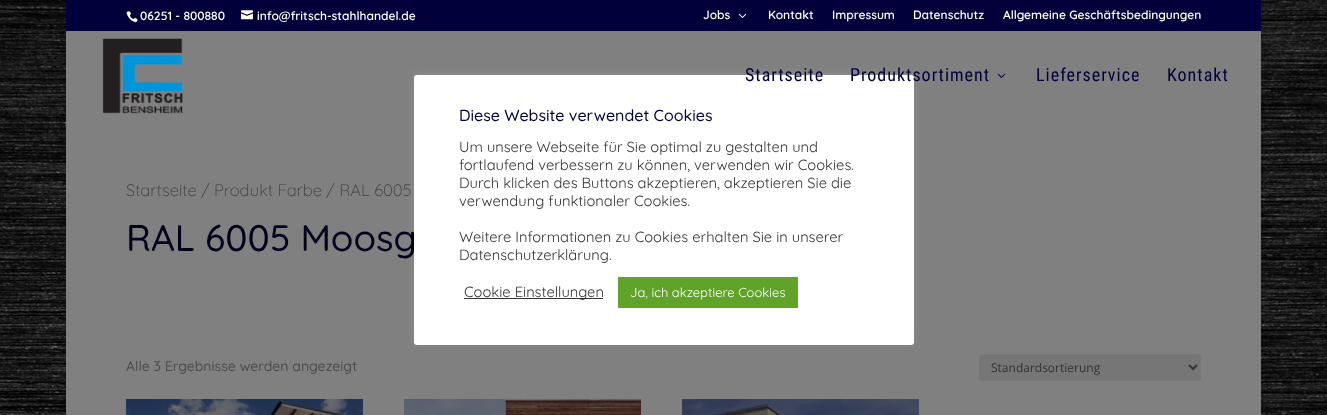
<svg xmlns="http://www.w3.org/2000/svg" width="1327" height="415">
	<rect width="100%" height="100%" fill="#FFFFFF" />
	<image x="0" y="0" width="1327" height="415" href="assets/img1.png" />
	<rect x="66" y="0" width="1195" height="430" fill="#000000" fill-opacity="0.2" filter="blur(5px)" />
	<rect x="66" y="0" width="1195" height="31" fill="#01003A" />
	<image x="126" y="11" width="12" height="12" href="assets/img2.png" />
	<text x="140" y="20" font-family="Quicksand" font-size="12" font-weight="600" fill="#FFFFFF">06251 - 800880</text>
	<image x="241" y="10" width="12" height="10" href="assets/img3.png" />
	<g font-family="Quicksand" font-size="12" font-weight="600" fill="#FFFFFF">
		<text x="257" y="20">info@fritsch-stahlhandel.de</text>
		<text x="703" y="19">Jobs</text>
	</g>
	<image x="738" y="13" width="9" height="5" href="assets/img4.png" />
	<g font-family="Quicksand" font-size="12" font-weight="600" fill="#FFFFFF">
		<text x="768" y="19">Kontakt</text>
		<text x="832" y="19">Impressum</text>
		<text x="913" y="19">Datenschutz</text>
		<text x="1003" y="19">Allgemeine Geschäftsbedingungen</text>
	</g>
	<rect x="66" y="31" width="1195" height="384" fill="#808080" />
	<image x="102" y="38" width="81" height="76" href="assets/img5.png" />
	<rect x="414" y="74" width="500" height="270" rx="3" fill="#ACABAB" fill-opacity="0.3" filter="blur(5px)" />
	<text x="126" y="251" font-family="Quicksand" font-size="37" font-weight="500" fill="#01001D">RAL 6005 Moosg</text>
	<rect x="414" y="75" width="500" height="270" rx="3" fill="#FFFFFF" />
	<g font-family="Roboto Condensed" font-size="18" letter-spacing="1" fill="#01003A">
		<text x="745" y="81">Startseite</text>
		<text x="850" y="81">Produktsortiment</text>
	</g>
	<image x="997" y="73" width="9" height="5" href="assets/img6.png" />
	<g font-family="Roboto Condensed" font-size="18" letter-spacing="1" fill="#01003A">
		<text x="1036" y="81">Lieferservice</text>
		<text x="1167" y="81">Kontakt</text>
	</g>
	<text x="126" y="196" font-family="Quicksand" font-size="16.6" font-weight="300" fill="#3B3B3B">Startseite / Produkt Farbe / RAL 6005</text>
	<text x="126" y="371" font-family="Quicksand" font-size="14" font-weight="500" fill="#4D4D4D">Alle 3 Ergebnisse werden angezeigt</text>
	<rect x="979" y="354" width="222" height="27" rx="3" fill="#767676" />
	<path d="M1189 365L1193 369L1197 365" fill="none" stroke="#333333" stroke-width="2" />
	<text x="991" y="372" font-family="Open Sans" font-size="12" fill="#333333">Standardsortierung</text>
	<image x="126" y="399" width="237" height="16" href="assets/img7.png" />
	<image x="404" y="399" width="237" height="16" href="assets/img8.png" />
	<image x="682" y="399" width="237" height="16" href="assets/img9.png" />
	<text x="459" y="121" font-family="Quicksand" font-size="16" font-weight="500" fill="#01003A">Diese Website verwendet Cookies</text>
	<g font-family="Quicksand" font-size="14.7" fill="#333333">
		<text x="459" y="152">Um unsere Webseite für Sie optimal zu gestalten und</text>
		<text x="459" y="170">fortlaufend verbessern zu können, verwenden wir Cookies.</text>
		<text x="459" y="188">Durch klicken des Buttons akzeptieren, akzeptieren Sie die</text>
		<text x="459" y="206">verwendung funktionaler Cookies.</text>
		<text x="459" y="242">Weitere Informationen zu Cookies erhalten Sie in unserer</text>
		<text x="459" y="260">Datenschutzerklärung.</text>
	</g>
	<rect x="464" y="298" width="139" height="1" fill="#333333" />
	<text x="464" y="297" font-family="Quicksand" font-size="14.7" fill="#333333">Cookie Einstellungen</text>
	<rect x="618" y="277" width="180" height="31" fill="#61A229" />
	<text x="630" y="297" font-family="Quicksand" font-size="13" fill="#FFFFFF">Ja, ich akzeptiere Cookies</text>
</svg>
